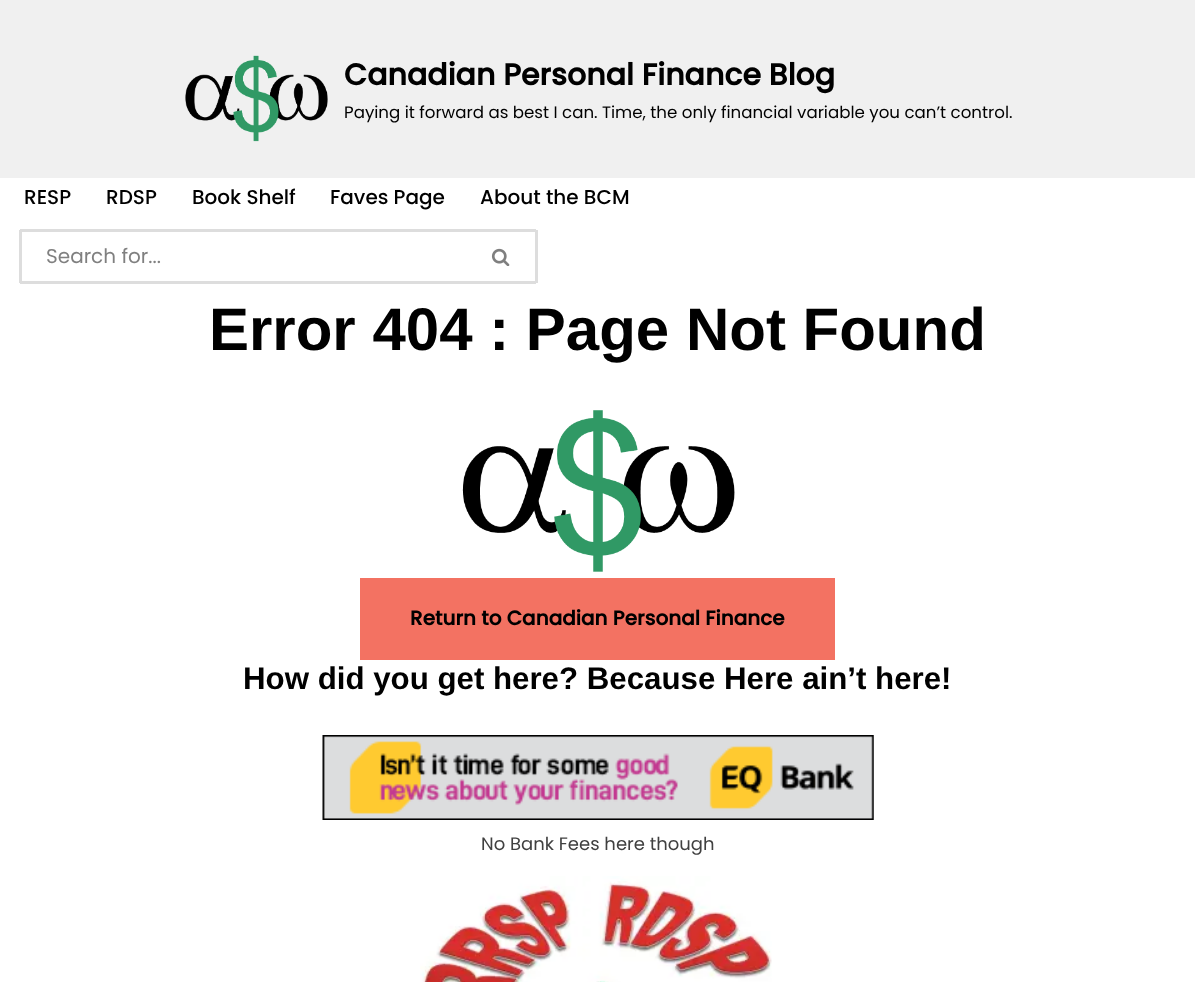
<svg xmlns="http://www.w3.org/2000/svg" width="1195" height="982">
	<rect width="100%" height="100%" fill="#FFFFFF" />
	<rect x="0" y="0" width="1195" height="178" fill="#F0F0F0" />
	<image x="185" y="55" width="143" height="87" href="assets/img1.png" />
	<text x="344" y="85" font-family="Poppins" font-size="30" font-weight="700" fill="#000000">Canadian Personal Finance Blog</text>
	<text x="344" y="118" font-family="Poppins" font-size="16.65" fill="#000000">Paying it forward as best I can. Time, the only financial variable you can’t control.</text>
	<g font-family="Poppins" font-size="20" font-weight="500" fill="#000000">
		<text x="24" y="204">RESP</text>
		<text x="106" y="204">RDSP</text>
		<text x="192" y="204">Book Shelf</text>
		<text x="330" y="204">Faves Page</text>
		<text x="480" y="204">About the BCM</text>
	</g>
	<rect x="20" y="229" width="516" height="3" fill="#DDDDDD" />
	<rect x="20" y="281" width="448" height="3" fill="#DDDDDD" />
	<rect x="19" y="230" width="3" height="53" fill="#DDDDDD" />
	<text x="46" y="263" font-family="Poppins" font-size="20" fill="#808080">Search for...</text>
	<rect x="535" y="230" width="3" height="53" fill="#DDDDDD" />
	<rect x="468" y="281" width="68" height="3" fill="#DDDDDD" />
	<image x="491" y="248" width="19" height="18" href="assets/img2.png" />
	<text x="209" y="350" font-family="Liberation Sans" font-size="60" font-weight="700" fill="#000000">Error 404 : Page Not Found</text>
	<image x="462" y="410" width="273" height="162" href="assets/img3.png" />
	<rect x="360" y="578" width="475" height="82" fill="#F37262" />
	<text x="410" y="625" font-family="Poppins" font-size="20" font-weight="700" fill="#000000">Return to Canadian Personal Finance</text>
	<text x="243" y="689" font-family="Liberation Sans" font-size="31.25" font-weight="700" fill="#000000">How did you get here? Because Here ain’t here!</text>
	<image x="322" y="735" width="552" height="85" href="assets/img4.png" />
	<text x="481" y="850" font-family="Poppins" font-size="18" fill="#404040">No Bank Fees here though</text>
	<image x="420" y="876" width="352" height="106" href="assets/img5.png" />
</svg>
